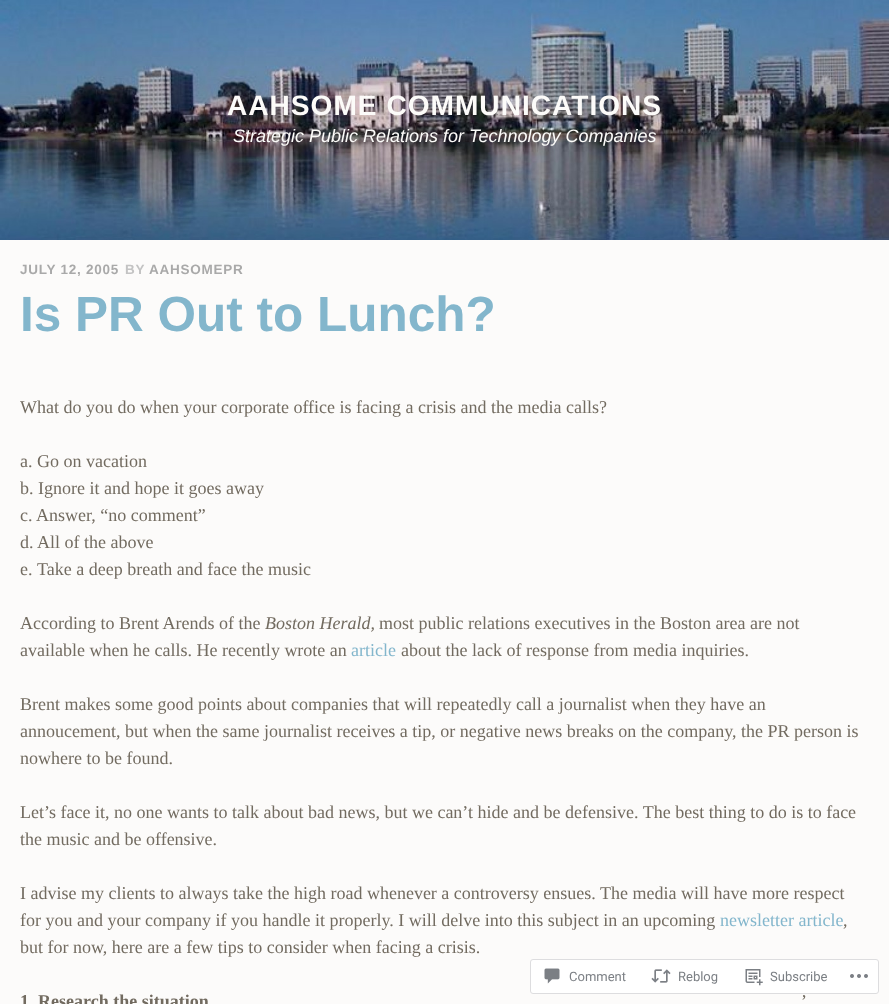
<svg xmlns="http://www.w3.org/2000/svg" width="889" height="1004">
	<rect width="100%" height="100%" fill="#FCFBFA" />
	<image x="0" y="0" width="889" height="240" href="assets/img1.png" />
	<text x="227" y="115" font-family="Arimo" font-size="28.1" font-weight="700" letter-spacing="1" fill="#FCFBF9">AAHSOME COMMUNICATIONS</text>
	<text x="233" y="142" font-family="Arimo" font-size="18" font-style="italic" fill="#FCFBF9">Strategic Public Relations for Technology Companies</text>
	<text x="20" y="274" font-family="Arimo" font-size="13.5" font-weight="700" letter-spacing="0.75" fill="#A9A9A9">JULY 12, 2005</text>
	<text x="125" y="274" font-family="Arimo" font-size="13.5" font-weight="700" letter-spacing="0.75" fill="#C3C3C3">BY</text>
	<text x="149" y="274" font-family="Arimo" font-size="13.5" font-weight="700" letter-spacing="0.75" fill="#A9A9A9">AAHSOMEPR</text>
	<text x="20" y="331" font-family="Arimo" font-size="49.5" font-weight="700" fill="#83B6CC">Is PR Out to Lunch?</text>
	<g font-family="Liberation Serif" font-size="18" fill="#726B60">
		<text x="20" y="413">What do you do when your corporate office is facing a crisis and the media calls?</text>
		<text x="20" y="467">a. Go on vacation</text>
		<text x="20" y="494">b. Ignore it and hope it goes away</text>
		<text x="20" y="521">c.</text>
		<text x="36" y="521">Answer, “no comment”</text>
		<text x="20" y="548">d.</text>
		<text x="37" y="548">All of the above</text>
		<text x="20" y="575">e.</text>
		<text x="37" y="575">Take a deep breath and face the music</text>
		<text x="20" y="629">According to Brent Arends of the</text>
	</g>
	<text x="265" y="629" font-family="Liberation Serif" font-size="18" font-style="italic" fill="#726B60">Boston Herald,</text>
	<g font-family="Liberation Serif" font-size="18" fill="#726B60">
		<text x="379" y="629">most public relations executives in the Boston area are not</text>
		<text x="20" y="656">available when he calls. He recently wrote an</text>
	</g>
	<text x="351" y="656" font-family="Liberation Serif" font-size="18" fill="#83B6CC">article</text>
	<g font-family="Liberation Serif" font-size="18" fill="#726B60">
		<text x="401" y="656">about the lack of response from media inquiries.</text>
		<text x="20" y="710">Brent makes some good points about companies that will repeatedly call a journalist when they have an</text>
		<text x="20" y="737">annoucement, but when the same journalist receives a tip, or negative news breaks on the company, the PR person is</text>
		<text x="20" y="764">nowhere to be found.</text>
		<text x="20" y="818">Let’s face it, no one wants to talk about bad news, but we can’t hide and be defensive. The best thing to do is to face</text>
		<text x="20" y="845">the music and be offensive.</text>
		<text x="20" y="899">I advise my clients to always take the high road whenever a controversy ensues. The media will have more respect</text>
		<text x="20" y="926">for you and your company if you handle it properly. I will delve into this subject in an upcoming</text>
	</g>
	<text x="720" y="926" font-family="Liberation Serif" font-size="18" fill="#83B6CC">newsletter article</text>
	<g font-family="Liberation Serif" font-size="18" fill="#726B60">
		<text x="843" y="926">,</text>
		<text x="20" y="953">but for now, here are a few tips to consider when facing a crisis.</text>
	</g>
	<g font-family="Liberation Serif" font-size="18" font-weight="700" fill="#726B60">
		<text x="20" y="1007">1</text>
		<text x="38" y="1007">Research the situation</text>
	</g>
	<text x="801" y="1007" font-family="Liberation Serif" font-size="18" fill="#726B60">’</text>
	<rect x="530.5" y="959.5" width="348" height="34" rx="2.5" fill="#FFFFFF" stroke="#DDDDDF" />
	<image x="544" y="968" width="16" height="16" href="assets/img2.png" />
	<text x="569" y="981" font-family="Roboto" font-size="13" fill="#7B7F84">Comment</text>
	<image x="651" y="969" width="20" height="14" href="assets/img3.png" />
	<text x="678" y="981" font-family="Roboto" font-size="13" fill="#7B7F84">Reblog</text>
	<image x="745" y="969" width="18" height="17" href="assets/img4.png" />
	<text x="770" y="981" font-family="Roboto" font-size="13" fill="#7B7F84">Subscribe</text>
	<image x="850" y="974" width="18" height="4" href="assets/img5.png" />
</svg>
